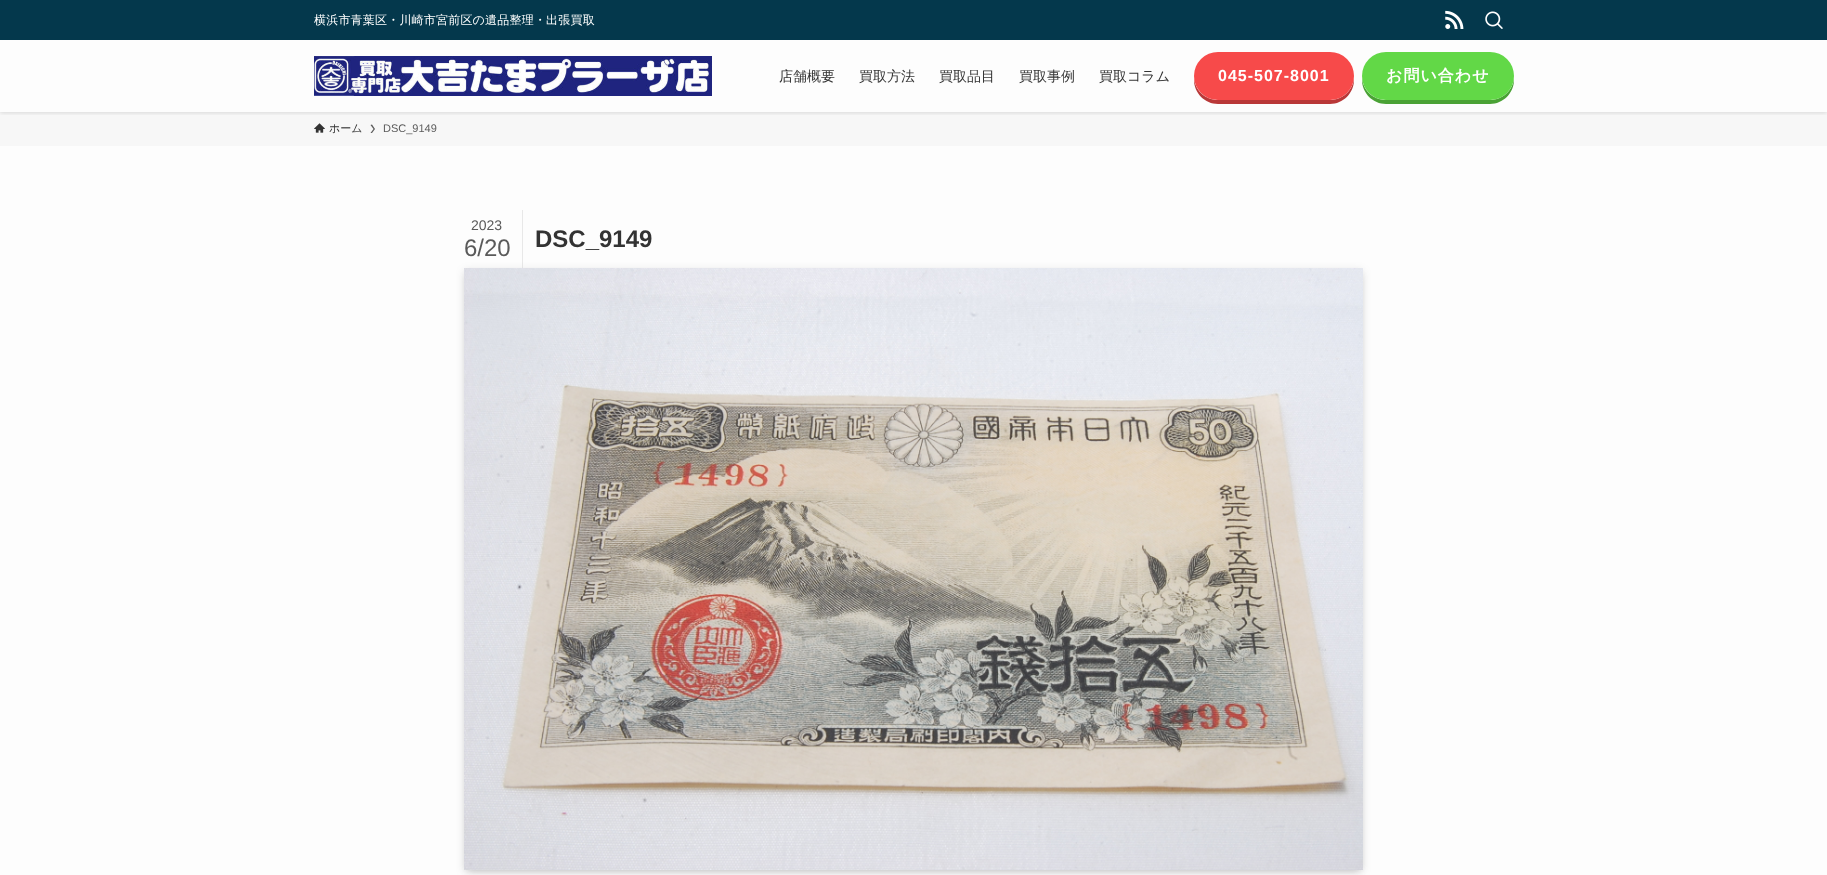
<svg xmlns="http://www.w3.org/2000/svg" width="1827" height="875">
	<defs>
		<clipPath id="clip1"><rect x="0" y="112" width="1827" height="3" /></clipPath>
	</defs>
	<rect width="100%" height="100%" fill="#FDFDFD" />
	<rect x="0" y="112" width="1827" height="34" fill="#F7F7F7" />
	<g clip-path="url(#clip1)">
		<rect x="0" y="1" width="1827" height="112" fill="#000000" fill-opacity="0.12" filter="blur(2px)" />
	</g>
	<rect x="0" y="0" width="1827" height="40" fill="#04384C" />
	<text x="314" y="24" font-family="WenQuanYi Zen Hei" font-size="12" font-weight="500" letter-spacing="0.2" fill="#FFFFFF">横浜市青葉区・川崎市宮前区の遺品整理・出張買取</text>
	<image x="1445" y="10" width="19" height="19" href="assets/img1.png" />
	<image x="1485" y="11" width="18" height="18" href="assets/img2.png" />
	<image x="314" y="56" width="398" height="40" href="assets/img3.png" />
	<g font-family="WenQuanYi Zen Hei" font-size="14" font-weight="500" fill="#333333">
		<text x="779" y="81">店舗概要</text>
		<text x="859" y="81">買取方法</text>
		<text x="939" y="81">買取品目</text>
		<text x="1019" y="81">買取事例</text>
		<text x="1099" y="81">買取コラム</text>
	</g>
	<path d="M1194 78V80C1194 93 1205 104 1218 104H1330C1343 104 1354 93 1354 80V78C1353 90 1343 100 1330 100H1218C1205 100 1195 90 1194 78Z" fill="#B93838" />
	<rect x="1194" y="52" width="160" height="48" rx="24" fill="#F74A4A" />
	<text x="1218" y="81" font-family="Liberation Sans" font-size="16" font-weight="700" letter-spacing="1" fill="#FFFFFF">045-507-8001</text>
	<path d="M1362 78V80C1362 93 1373 104 1386 104H1490C1503 104 1514 93 1514 80V78C1513 90 1503 100 1490 100H1386C1373 100 1363 90 1362 78Z" fill="#4AA235" />
	<rect x="1362" y="52" width="152" height="48" rx="24" fill="#62D847" />
	<text x="1386" y="81" font-family="WenQuanYi Zen Hei" font-size="16" font-weight="700" letter-spacing="1" fill="#FFFFFF">お問い合わせ</text>
	<image x="314" y="123" width="11" height="10" href="assets/img4.png" />
	<text x="329" y="132" font-family="WenQuanYi Zen Hei" font-size="11" font-weight="500" fill="#333333">ホーム</text>
	<path d="M372 124.5L370.5 125L373.5 129L370.5 133H372L375 129Z" fill="#5A5A5A" />
	<text x="383" y="132" font-family="Liberation Sans" font-size="11" fill="#5A5A5A">DSC_9149</text>
	<rect x="464" y="270" width="899" height="602" fill="#000000" fill-opacity="0.1" filter="blur(4px)" />
	<rect x="468" y="276" width="891" height="594" fill="#000000" fill-opacity="0.2" filter="blur(4px)" />
	<rect x="522" y="210" width="1" height="58" fill="#C7C7C7" fill-opacity="0.4" />
	<text x="471" y="230" font-family="Liberation Sans" font-size="14" fill="#5A5A5A">2023</text>
	<text x="464" y="256" font-family="Liberation Sans" font-size="24" fill="#5A5A5A">6/20</text>
	<text x="535" y="247" font-family="Liberation Sans" font-size="24" font-weight="700" fill="#333333">DSC_9149</text>
	<image x="464" y="268" width="899" height="602" href="assets/img5.png" />
</svg>
